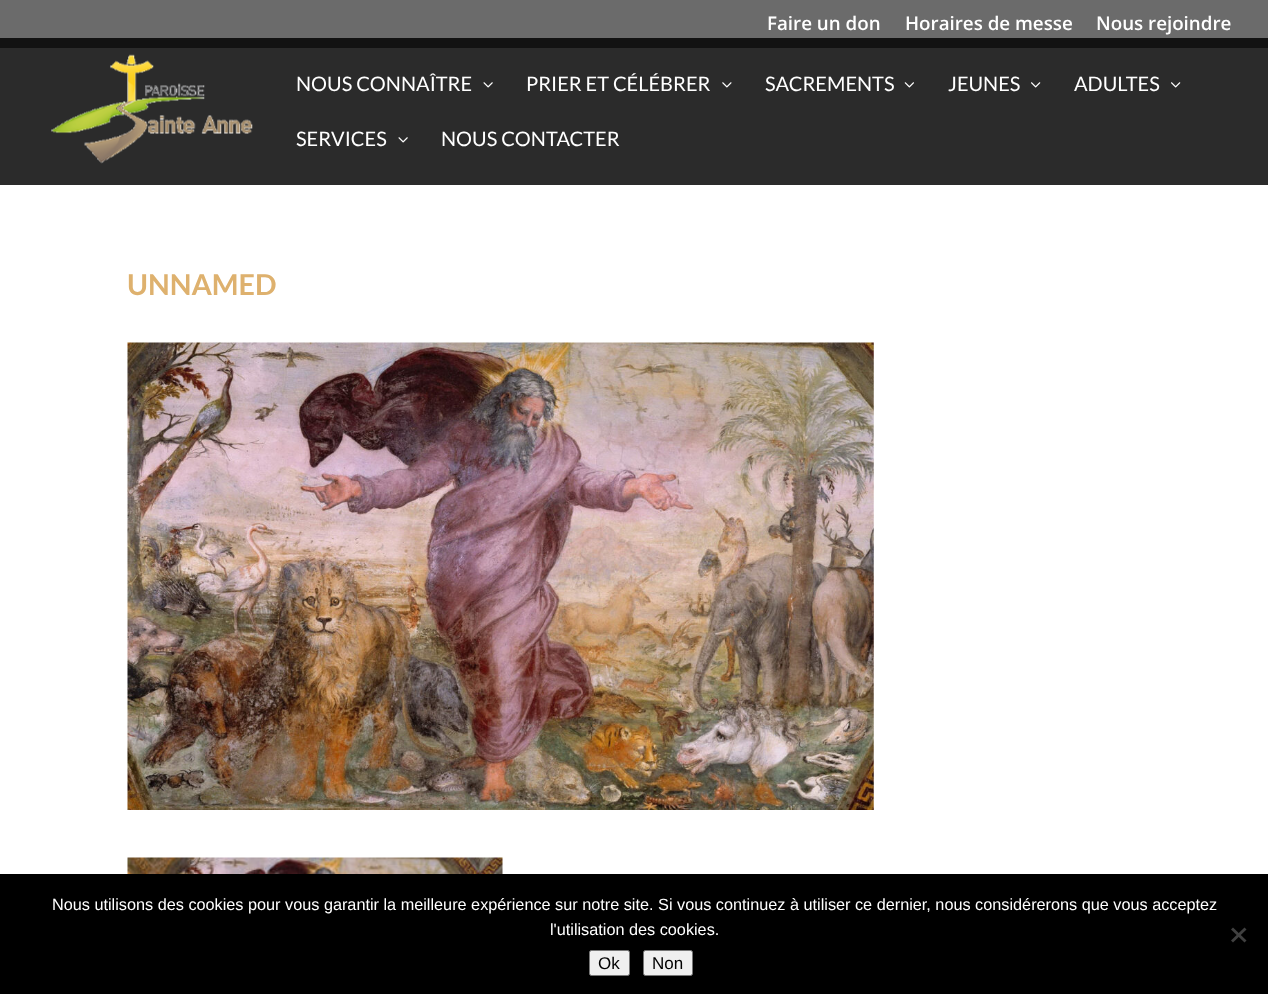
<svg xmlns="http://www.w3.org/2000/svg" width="1268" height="994">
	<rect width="100%" height="100%" fill="#FFFFFF" />
	<rect x="0" y="0" width="1268" height="38" fill="#6B6B6B" />
	<g font-family="Open Sans" font-size="18.75" font-weight="600" fill="#FFFFFF">
		<text x="767" y="30">Faire un don</text>
		<text x="905" y="30">Horaires de messe</text>
		<text x="1096" y="30">Nous rejoindre</text>
	</g>
	<rect x="0" y="48" width="1268" height="137" fill="#2B2B2B" />
	<rect x="0" y="38" width="1268" height="10" fill="#121212" />
	<image x="51" y="54" width="202" height="110" href="assets/img1.png" />
	<text x="296" y="91" font-family="Lato" font-size="20" fill="#FFFFFF">NOUS CONNAÎTRE</text>
	<image x="483" y="82" width="10" height="6" href="assets/img2.png" />
	<text x="526" y="91" font-family="Lato" font-size="20" fill="#FFFFFF">PRIER ET CÉLÉBRER</text>
	<image x="722" y="82" width="10" height="6" href="assets/img3.png" />
	<text x="765" y="91" font-family="Lato" font-size="20" fill="#FFFFFF">SACREMENTS</text>
	<image x="904" y="82" width="10" height="6" href="assets/img4.png" />
	<text x="948" y="91" font-family="Lato" font-size="20" fill="#FFFFFF">JEUNES</text>
	<image x="1031" y="82" width="10" height="6" href="assets/img5.png" />
	<text x="1074" y="91" font-family="Lato" font-size="20" fill="#FFFFFF">ADULTES</text>
	<image x="1171" y="82" width="10" height="6" href="assets/img5.png" />
	<text x="296" y="146" font-family="Lato" font-size="20" fill="#FFFFFF">SERVICES</text>
	<image x="398" y="137" width="10" height="6" href="assets/img2.png" />
	<text x="441" y="146" font-family="Lato" font-size="20" fill="#FFFFFF">NOUS CONTACTER</text>
	<text x="127" y="295" font-family="Lato" font-size="28.75" font-weight="700" fill="#DEB16E">UNNAMED</text>
	<image x="127" y="342" width="747" height="468" href="assets/img6.png" />
	<image x="127" y="857" width="376" height="17" href="assets/img7.png" />
	<rect x="0" y="874" width="1268" height="120" fill="#000000" />
	<g font-family="Liberation Sans" font-size="16.25" fill="#FFFFFF">
		<text x="52" y="910">Nous utilisons des cookies pour vous garantir la meilleure expérience sur notre site. Si vous continuez à utiliser ce dernier, nous considérerons que vous acceptez</text>
		<text x="550" y="935">l'utilisation des cookies.</text>
	</g>
	<path d="M1244.5 927.5L1246.5 929.5L1233 942.5L1231 940.5Z" fill="#404040" />
	<path d="M1231 929.5L1233 927.5L1246.5 940.5L1244.5 942.5Z" fill="#404040" />
	<rect x="589.5" y="950.5" width="40" height="25" rx="2" fill="#EFEFEF" stroke="#767676" />
	<text x="598" y="969" font-family="Liberation Sans" font-size="17" fill="#000000">Ok</text>
	<rect x="643.5" y="950.5" width="49" height="25" rx="2" fill="#EFEFEF" stroke="#767676" />
	<text x="652" y="969" font-family="Liberation Sans" font-size="17" fill="#000000">Non</text>
</svg>
